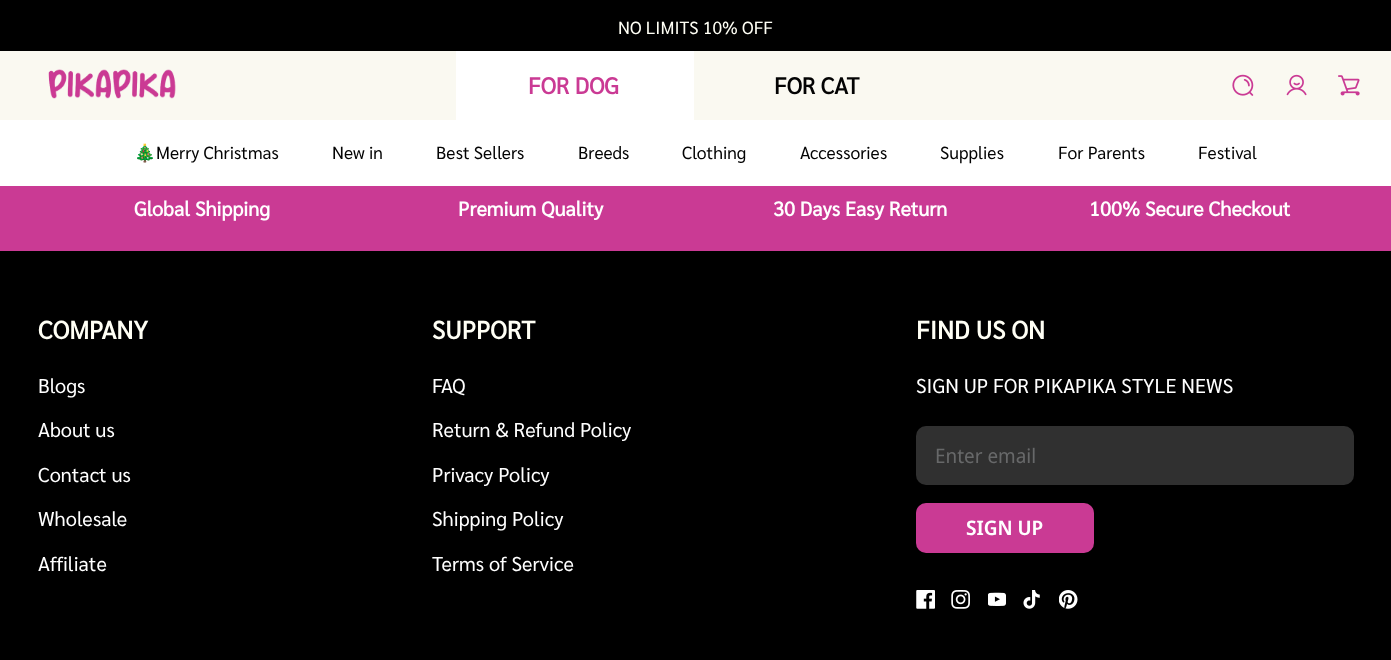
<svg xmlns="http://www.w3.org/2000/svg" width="1391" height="660">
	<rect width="100%" height="100%" fill="#000000" />
	<text x="618" y="34" font-family="Sarabun" font-size="17.5" fill="#FFFFF5">NO LIMITS 10% OFF</text>
	<rect x="0" y="51" width="1391" height="69" fill="#FAF9F1" />
	<image x="48" y="69" width="128" height="30" href="assets/img1.png" />
	<image x="1232" y="74" width="22" height="22" href="assets/img2.png" />
	<image x="1286" y="74" width="21" height="22" href="assets/img3.png" />
	<image x="1338" y="75" width="22" height="21" href="assets/img4.png" />
	<rect x="456" y="51" width="238" height="69" fill="#FFFFFF" />
	<text x="528" y="94" font-family="Sarabun" font-size="23" font-weight="700" fill="#CA3A94">FOR DOG</text>
	<text x="774" y="94" font-family="Sarabun" font-size="23" font-weight="700" fill="#030303">FOR CAT</text>
	<rect x="0" y="120" width="1391" height="66" fill="#FFFFFF" />
	<text x="134" y="159" font-family="Noto Color Emoji" font-size="17.5" fill="#030303">🎄</text>
	<g font-family="Sarabun" font-size="17.5" fill="#030303">
		<text x="156" y="159">Merry Christmas</text>
		<text x="332" y="159">New in</text>
		<text x="436" y="159">Best Sellers</text>
		<text x="578" y="159">Breeds</text>
		<text x="682" y="159">Clothing</text>
		<text x="800" y="159">Accessories</text>
		<text x="940" y="159">Supplies</text>
		<text x="1058" y="159">For Parents</text>
		<text x="1198" y="159">Festival</text>
	</g>
	<rect x="0" y="186" width="1391" height="65" fill="#CA3A94" />
	<g font-family="Sarabun" font-size="20" font-weight="700" fill="#FFFFFF">
		<text x="134" y="216">Global Shipping</text>
		<text x="458" y="216">Premium Quality</text>
		<text x="773" y="216">30 Days Easy Return</text>
		<text x="1089" y="216">100% Secure Checkout</text>
	</g>
	<text x="38" y="339" font-family="Sarabun" font-size="25" font-weight="700" fill="#FFFFF5">COMPANY</text>
	<g font-family="Sarabun" font-size="20" fill="#FFFFFF">
		<text x="38" y="393">Blogs</text>
		<text x="38" y="437">About us</text>
		<text x="38" y="482">Contact us</text>
		<text x="38" y="526">Wholesale</text>
		<text x="38" y="571">Affiliate</text>
	</g>
	<text x="432" y="339" font-family="Sarabun" font-size="25" font-weight="700" fill="#FFFFF5">SUPPORT</text>
	<g font-family="Sarabun" font-size="20" fill="#FFFFFF">
		<text x="432" y="393">FAQ</text>
		<text x="432" y="437">Return &amp; Refund Policy</text>
		<text x="432" y="482">Privacy Policy</text>
		<text x="432" y="526">Shipping Policy</text>
		<text x="432" y="571">Terms of Service</text>
	</g>
	<text x="916" y="339" font-family="Sarabun" font-size="25" font-weight="700" fill="#FFFFF5">FIND US ON</text>
	<text x="916" y="393" font-family="Sarabun" font-size="20" fill="#FFFFFF">SIGN UP FOR PIKAPIKA STYLE NEWS</text>
	<rect x="916" y="426" width="438" height="59" rx="10" fill="#303030" />
	<text x="935" y="463" font-family="Noto Sans Display" font-size="20" fill="#676869">Enter email</text>
	<rect x="916" y="503" width="178" height="50" rx="10" fill="#CA3A94" />
	<text x="966" y="535" font-family="Noto Sans Display" font-size="20" font-weight="600" fill="#FFFFFF">SIGN UP</text>
	<image x="916" y="590" width="19" height="19" href="assets/img5.png" />
	<image x="951" y="590" width="19" height="19" href="assets/img6.png" />
	<image x="988" y="592" width="18" height="14" href="assets/img7.png" />
	<image x="1023" y="590" width="17" height="19" href="assets/img8.png" />
	<image x="1059" y="590" width="19" height="19" href="assets/img9.png" />
</svg>
